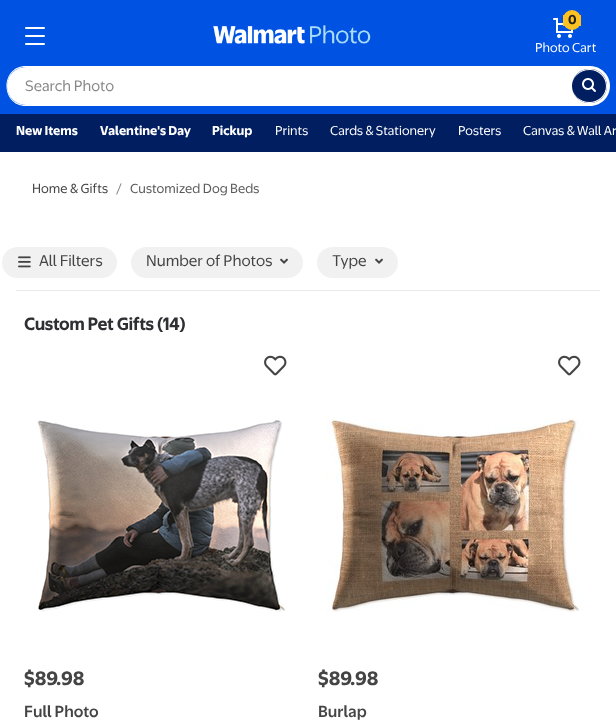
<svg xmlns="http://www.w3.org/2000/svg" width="616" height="721">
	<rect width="100%" height="100%" fill="#FFFFFF" />
	<rect x="0" y="0" width="616" height="114" fill="#0053E2" />
	<image x="25" y="27" width="20" height="18" href="assets/img1.png" />
	<image x="213" y="25" width="158" height="19" href="assets/img2.png" />
	<image x="553" y="18" width="20" height="20" href="assets/img3.png" />
	<rect x="563" y="10" width="18" height="20" rx="9" fill="#FFC220" />
	<rect x="579" y="15" width="2" height="11" fill="#FFC220" />
	<rect x="563" y="15" width="2" height="11" fill="#FFC220" />
	<text x="568" y="24" font-family="'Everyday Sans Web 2'" font-size="12" font-weight="700" fill="#222222">0</text>
	<text x="535" y="52" font-family="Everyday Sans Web" font-size="12" fill="#FFFFFF">Photo Cart</text>
	<path d="M26 67H572V105H26C15.5 105 7 96.5 7 86C7 75.5 15.5 67 26 67Z" fill="#FFFFFF" />
	<path d="M26 66H572V106H26C0 106 0 66 26 66ZM26 67H572V105H26C1 105 1 67 26 67Z" fill="#FFFFFF" fill-rule="evenodd" />
	<text x="25" y="91" font-family="Everyday Sans Web" font-size="14" fill="#888888">Search Photo</text>
	<path d="M572 66H590C601 66 610 75 610 86C610 97 601 106 590 106H572Z" fill="#FFFFFF" />
	<rect x="572" y="69" width="35" height="34" rx="17" fill="#001E60" />
	<path d="M589.5 69C599 69 607 76.5 607 86C607 95.5 599 103 589.5 103C580 103 572 95.5 572 86C572 76.5 580 69 589.5 69ZM589.5 70C598.5 70 606 77 606 86C606 95 598.5 102 589.5 102C580 102 572 95 572 86C572 77 580 70 589.5 70Z" fill="#FFFFFF" fill-rule="evenodd" />
	<image x="582" y="78" width="14" height="14" href="assets/img4.png" />
	<rect x="0" y="114" width="616" height="38" fill="#001E60" />
	<g font-family="'Everyday Sans Web 2'" font-size="12" font-weight="700" fill="#FFFFFF">
		<text x="16" y="135">New Items</text>
		<text x="100" y="135">Valentine's Day</text>
		<text x="212" y="135">Pickup</text>
	</g>
	<g font-family="Everyday Sans Web" font-size="12" fill="#FFFFFF">
		<text x="275" y="135">Prints</text>
		<text x="330" y="135">Cards &amp; Stationery</text>
		<text x="458" y="135">Posters</text>
		<text x="523" y="135">Canvas &amp; Wall Ar</text>
	</g>
	<text x="32" y="193" font-family="Everyday Sans Web" font-size="12.25" fill="#444444">Home &amp; Gifts</text>
	<text x="116" y="193" font-family="Everyday Sans Web" font-size="12.25" fill="#888888">/</text>
	<text x="130" y="193" font-family="Everyday Sans Web" font-size="12.25" fill="#595959">Customized Dog Beds</text>
	<rect x="16" y="290" width="584" height="1" fill="#E9E9E9" />
	<rect x="2" y="247" width="115" height="31" rx="15.5" fill="#F1F1F2" />
	<image x="18" y="256" width="13" height="12" href="assets/img5.png" />
	<text x="39" y="266" font-family="Everyday Sans Web" font-size="14.5" fill="#444444">All Filters</text>
	<rect x="131" y="247" width="172" height="31" rx="15.5" fill="#F1F1F2" />
	<text x="146" y="266" font-family="Everyday Sans Web" font-size="14.5" fill="#444444">Number of Photos</text>
	<image x="280" y="258" width="8" height="6" href="assets/img6.png" />
	<rect x="317" y="247" width="81" height="31" rx="15.5" fill="#F1F1F2" />
	<text x="332" y="266" font-family="Everyday Sans Web" font-size="14.5" fill="#444444">Type</text>
	<image x="375" y="258" width="8" height="6" href="assets/img6.png" />
	<text x="24" y="330" font-family="Everyday Sans Web" font-size="16" font-weight="700" fill="#2E2F32">Custom Pet Gifts (14)</text>
	<image x="264" y="355" width="23" height="21" href="assets/img7.png" />
	<image x="37" y="420" width="249" height="192" href="assets/img8.png" />
	<g font-family="'Everyday Sans Web 2'" font-size="18" font-weight="700" fill="#444444">
		<text x="24" y="685">$89</text>
		<text x="56" y="685">.</text>
		<text x="61" y="685">98</text>
	</g>
	<text x="24" y="717" font-family="Everyday Sans Web" font-size="15" font-weight="500" fill="#444444">Full Photo</text>
	<image x="558" y="355" width="23" height="21" href="assets/img7.png" />
	<image x="327" y="418" width="256" height="194" href="assets/img9.png" />
	<g font-family="'Everyday Sans Web 2'" font-size="18" font-weight="700" fill="#444444">
		<text x="318" y="685">$89</text>
		<text x="350" y="685">.</text>
		<text x="355" y="685">98</text>
	</g>
	<text x="318" y="717" font-family="Everyday Sans Web" font-size="15" font-weight="500" fill="#444444">Burlap</text>
</svg>
